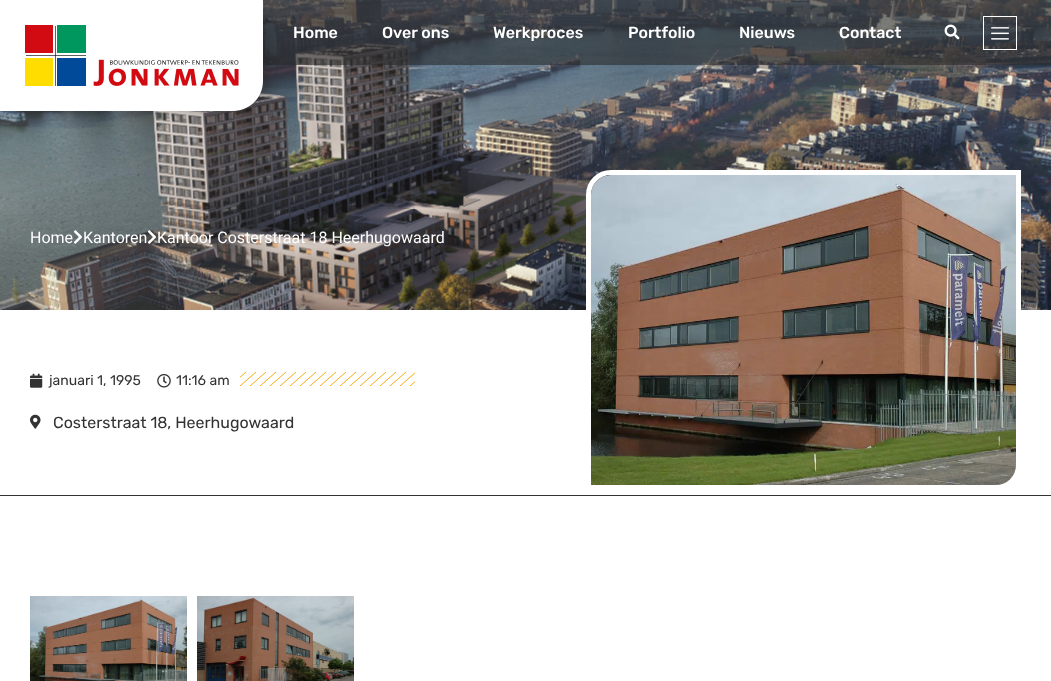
<svg xmlns="http://www.w3.org/2000/svg" width="1051" height="681">
	<rect width="100%" height="100%" fill="#FFFFFF" />
	<image x="0" y="0" width="1051" height="310" href="assets/img4.png" />
	<rect x="263" y="0" width="788" height="65" fill="#2B2B2B" fill-opacity="0.61" />
	<rect x="0" y="0" width="263" height="111" rx="30" fill="#000000" fill-opacity="0.2" filter="blur(7.5px)" />
	<path d="M0 0H263V81C263 97.5 249.5 111 233 111H0Z" fill="#FFFFFF" />
	<image x="25" y="25" width="214" height="61" href="assets/img1.png" />
	<g font-family="Rubik" font-size="16" font-weight="500" fill="#FFFFFF">
		<text x="293" y="38">Home</text>
		<text x="382" y="38">Over ons</text>
		<text x="493" y="38">Werkproces</text>
		<text x="628" y="38">Portfolio</text>
		<text x="739" y="38">Nieuws</text>
		<text x="839" y="38">Contact</text>
	</g>
	<image x="944" y="24" width="16" height="16" href="assets/img2.png" />
	<rect x="983.5" y="16.5" width="33" height="33" fill="none" stroke="#FFFFFF" />
	<image x="991" y="27" width="18" height="13" href="assets/img3.png" />
	<text x="30" y="243" font-family="Roboto" font-size="16" fill="#FFFFFF">Home</text>
	<image x="73" y="230" width="10" height="14" href="assets/img5.png" />
	<text x="83" y="243" font-family="Roboto" font-size="16" fill="#FFFFFF">Kantoren</text>
	<image x="147" y="230" width="10" height="14" href="assets/img6.png" />
	<text x="157" y="243" font-family="Roboto" font-size="16" fill="#FFFFFF">Kantoor Costerstraat 18 Heerhugowaard</text>
	<path d="M611 172.5H1018.5V465C1018.5 477.5 1008.5 487.5 996 487.5H588.5V195C588.5 182.5 598.5 172.5 611 172.5Z" fill="none" stroke="#FFFFFF" stroke-width="5" />
	<image x="591" y="175" width="425" height="310" href="assets/img7.png" />
	<rect x="0" y="495" width="1051" height="1" fill="#333333" />
	<image x="30" y="373" width="13" height="15" href="assets/img8.png" />
	<text x="49" y="385" font-family="Rubik" font-size="14" fill="#333333">januari 1, 1995</text>
	<image x="157" y="374" width="14" height="14" href="assets/img9.png" />
	<text x="176" y="385" font-family="Rubik" font-size="14" fill="#333333">11:16 am</text>
	<image x="240" y="372" width="175" height="14" href="assets/img10.png" />
	<image x="30" y="414" width="11" height="15" href="assets/img11.png" />
	<text x="53" y="428" font-family="Rubik" font-size="16" fill="#333333">Costerstraat 18, Heerhugowaard</text>
	<image x="30" y="596" width="157" height="85" href="assets/img12.png" />
	<image x="197" y="596" width="157" height="85" href="assets/img13.png" />
</svg>
